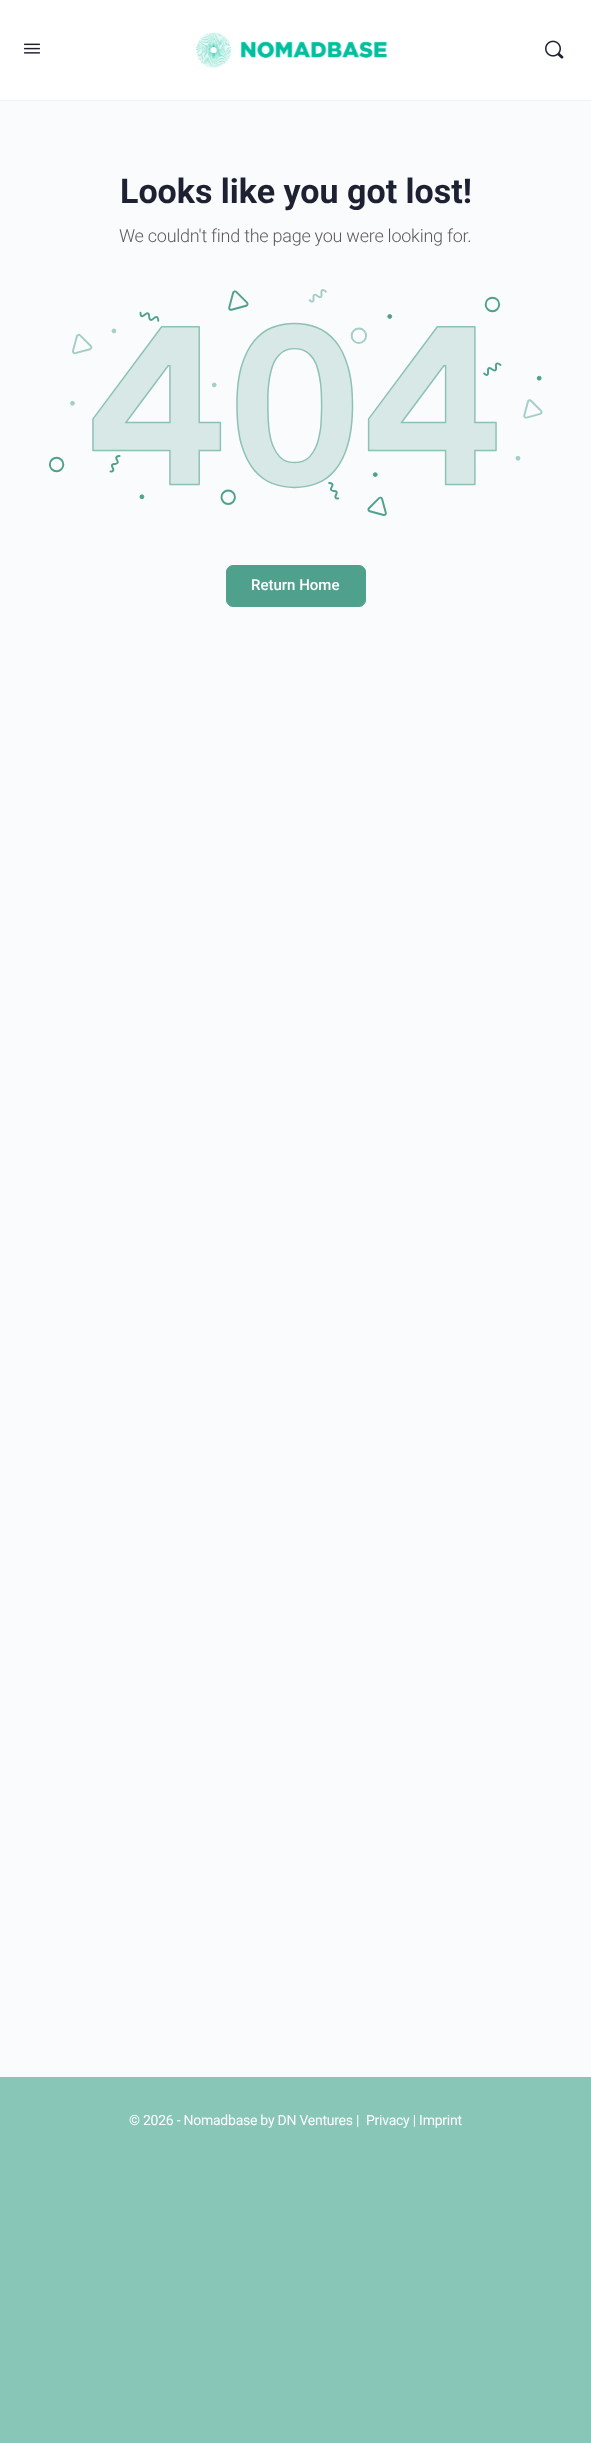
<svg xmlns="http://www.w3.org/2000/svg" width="591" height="2443">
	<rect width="100%" height="100%" fill="#FAFBFD" />
	<rect x="0" y="100" width="591" height="1" fill="#F2F3F6" />
	<rect x="0" y="0" width="591" height="100" fill="#FFFFFF" />
	<image x="24" y="43" width="16" height="11" href="assets/img1.png" />
	<image x="196" y="32" width="192" height="36" href="assets/img2.png" />
	<image x="545" y="40" width="19" height="19" href="assets/img3.png" />
	<text x="120" y="203" font-family="Roboto" font-size="34" font-weight="700" fill="#1E2132">Looks like you got lost!</text>
	<text x="119" y="242" font-family="Roboto" font-size="18" font-weight="300" letter-spacing="-0.25" fill="#5A5A5A">We couldn't find the page you were looking for.</text>
	<image x="48" y="289" width="495" height="227" href="assets/img4.png" />
	<rect x="226.5" y="565.5" width="139" height="41" rx="6.5" fill="#4FA18E" stroke="#4FA18E" />
	<text x="251" y="590" font-family="Roboto" font-size="15" font-weight="500" fill="#FFFFFF">Return Home</text>
	<rect x="0" y="2077" width="591" height="366" fill="#88C6B7" />
	<g font-family="Roboto" font-size="14" letter-spacing="-0.25" fill="#FFFFFF">
		<text x="129" y="2125">© 2026 - Nomadbase by DN Ventures |</text>
		<text x="366" y="2125">Privacy | Imprint</text>
	</g>
</svg>
